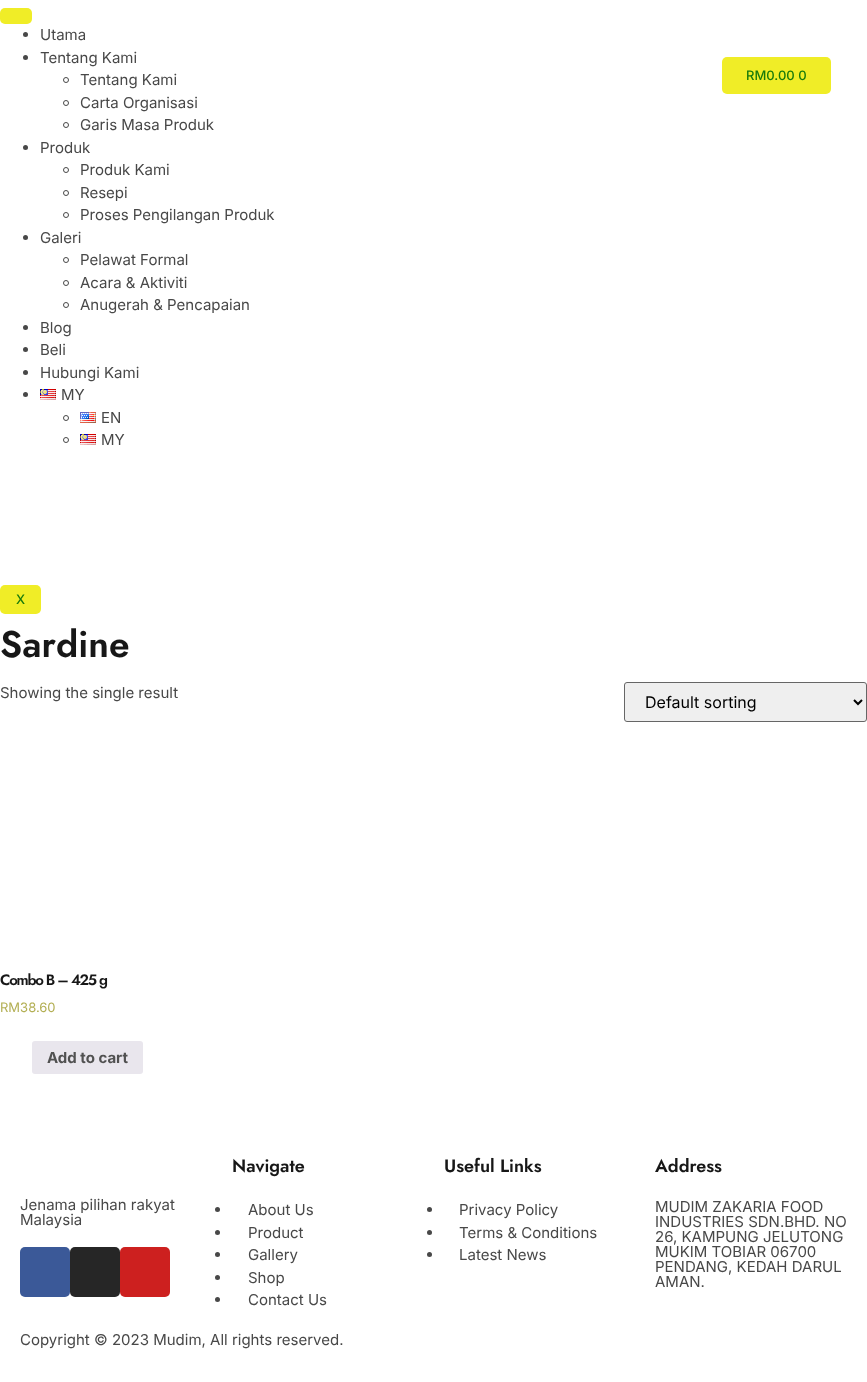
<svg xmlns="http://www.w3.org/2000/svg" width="867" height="1382">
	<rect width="100%" height="100%" fill="#FFFFFF" />
	<rect x="0" y="8" width="32" height="16" rx="5" fill="#F0ED27" />
	<circle cx="25.5" cy="34.5" r="2.5" fill="#484848" />
	<text x="40" y="40" font-family="Inter" font-size="15" fill="#484848">Utama</text>
	<circle cx="25.5" cy="57.5" r="2.5" fill="#484848" />
	<text x="40" y="63" font-family="Inter" font-size="15" fill="#484848">Tentang Kami</text>
	<circle cx="66" cy="80" r="2.5" fill="none" stroke="#484848" />
	<text x="80" y="85" font-family="Inter" font-size="15" fill="#484848">Tentang Kami</text>
	<circle cx="66" cy="103" r="2.5" fill="none" stroke="#484848" />
	<text x="80" y="108" font-family="Inter" font-size="15" fill="#484848">Carta Organisasi</text>
	<circle cx="66" cy="125" r="2.5" fill="none" stroke="#484848" />
	<text x="80" y="130" font-family="Inter" font-size="15" fill="#484848">Garis Masa Produk</text>
	<circle cx="25.5" cy="147.5" r="2.5" fill="#484848" />
	<text x="40" y="153" font-family="Inter" font-size="15" fill="#484848">Produk</text>
	<circle cx="66" cy="170" r="2.5" fill="none" stroke="#484848" />
	<text x="80" y="175" font-family="Inter" font-size="15" fill="#484848">Produk Kami</text>
	<circle cx="66" cy="193" r="2.5" fill="none" stroke="#484848" />
	<text x="80" y="198" font-family="Inter" font-size="15" fill="#484848">Resepi</text>
	<circle cx="66" cy="215" r="2.5" fill="none" stroke="#484848" />
	<text x="80" y="220" font-family="Inter" font-size="15" fill="#484848">Proses Pengilangan Produk</text>
	<circle cx="25.5" cy="237.5" r="2.5" fill="#484848" />
	<text x="40" y="243" font-family="Inter" font-size="15" fill="#484848">Galeri</text>
	<circle cx="66" cy="260" r="2.5" fill="none" stroke="#484848" />
	<text x="80" y="265" font-family="Inter" font-size="15" fill="#484848">Pelawat Formal</text>
	<circle cx="66" cy="283" r="2.5" fill="none" stroke="#484848" />
	<text x="80" y="288" font-family="Inter" font-size="15" fill="#484848">Acara &amp; Aktiviti</text>
	<circle cx="66" cy="305" r="2.5" fill="none" stroke="#484848" />
	<text x="80" y="310" font-family="Inter" font-size="15" fill="#484848">Anugerah &amp; Pencapaian</text>
	<circle cx="25.5" cy="327.5" r="2.5" fill="#484848" />
	<text x="40" y="333" font-family="Inter" font-size="15" fill="#484848">Blog</text>
	<circle cx="25.5" cy="349.5" r="2.5" fill="#484848" />
	<text x="40" y="355" font-family="Inter" font-size="15" fill="#484848">Beli</text>
	<circle cx="25.5" cy="372.5" r="2.5" fill="#484848" />
	<text x="40" y="378" font-family="Inter" font-size="15" fill="#484848">Hubungi Kami</text>
	<circle cx="25.5" cy="394.5" r="2.5" fill="#484848" />
	<image x="40" y="389" width="16" height="11" href="assets/img1.png" />
	<text x="61" y="400" font-family="Inter" font-size="15" fill="#484848">MY</text>
	<circle cx="66" cy="418" r="2.5" fill="none" stroke="#484848" />
	<image x="80" y="412" width="16" height="11" href="assets/img2.png" />
	<text x="101" y="423" font-family="Inter" font-size="15" fill="#484848">EN</text>
	<circle cx="66" cy="440" r="2.5" fill="none" stroke="#484848" />
	<image x="80" y="434" width="16" height="11" href="assets/img1.png" />
	<text x="101" y="445" font-family="Inter" font-size="15" fill="#484848">MY</text>
	<rect x="0" y="585" width="41" height="29" rx="5" fill="#F0ED27" />
	<text x="16" y="604" font-family="Inter" font-size="13" font-weight="500" fill="#1A7B0B">X</text>
	<rect x="722" y="57" width="109" height="37" rx="5" fill="#F0ED27" />
	<text x="746" y="80" font-family="Inter" font-size="13" font-weight="500" fill="#1A7B0B">RM0.00 0</text>
	<text x="0" y="657" font-family="Jost" font-size="37" font-weight="600" fill="#171717">Sardine</text>
	<text x="0" y="698" font-family="Inter" font-size="15" fill="#484848">Showing the single result</text>
	<rect x="624.5" y="682.5" width="242" height="39" rx="2.5" fill="#EFEFEF" stroke="#666666" />
	<path d="M854 700L858 704L862 700" fill="none" stroke="#000000" stroke-width="2" />
	<text x="645" y="708" font-family="Inter" font-size="16" fill="#000000">Default sorting</text>
	<text x="0" y="985" font-family="Jost" font-size="15" font-weight="600" letter-spacing="-1.25" fill="#171717">Combo B – 425 g</text>
	<text x="0" y="1012" font-family="Inter" font-size="13" fill="#B3AF54">RM38.60</text>
	<rect x="32" y="1041" width="111" height="33" rx="3" fill="#E9E6ED" />
	<text x="47" y="1063" font-family="Inter" font-size="15" font-weight="700" fill="#515151">Add to cart</text>
	<g font-family="Inter" font-size="15" fill="#484848">
		<text x="20" y="1210">Jenama pilihan rakyat</text>
		<text x="20" y="1225">Malaysia</text>
	</g>
	<rect x="20" y="1247" width="50" height="50" rx="5" fill="#3B5998" />
	<rect x="70" y="1247" width="50" height="50" rx="5" fill="#262626" />
	<rect x="120" y="1247" width="50" height="50" rx="5" fill="#CD201F" />
	<text x="232" y="1172" font-family="Jost" font-size="18" font-weight="600" fill="#171717">Navigate</text>
	<circle cx="217.5" cy="1209.5" r="2.5" fill="#484848" />
	<text x="248" y="1215" font-family="Inter" font-size="15" fill="#484848">About Us</text>
	<circle cx="217.5" cy="1232.5" r="2.5" fill="#484848" />
	<text x="248" y="1238" font-family="Inter" font-size="15" fill="#484848">Product</text>
	<circle cx="217.5" cy="1254.5" r="2.5" fill="#484848" />
	<text x="248" y="1260" font-family="Inter" font-size="15" fill="#484848">Gallery</text>
	<circle cx="217.5" cy="1277.5" r="2.5" fill="#484848" />
	<text x="248" y="1283" font-family="Inter" font-size="15" fill="#484848">Shop</text>
	<circle cx="217.5" cy="1299.5" r="2.5" fill="#484848" />
	<text x="248" y="1305" font-family="Inter" font-size="15" fill="#484848">Contact Us</text>
	<text x="444" y="1172" font-family="Jost" font-size="18" font-weight="600" fill="#171717">Useful Links</text>
	<circle cx="429.5" cy="1209.5" r="2.5" fill="#484848" />
	<text x="459" y="1215" font-family="Inter" font-size="15" fill="#484848">Privacy Policy</text>
	<circle cx="429.5" cy="1232.5" r="2.5" fill="#484848" />
	<text x="459" y="1238" font-family="Inter" font-size="15" fill="#484848">Terms &amp; Conditions</text>
	<circle cx="429.5" cy="1254.5" r="2.5" fill="#484848" />
	<text x="459" y="1260" font-family="Inter" font-size="15" fill="#484848">Latest News</text>
	<text x="655" y="1172" font-family="Jost" font-size="18" font-weight="600" fill="#171717">Address</text>
	<g font-family="Inter" font-size="15" fill="#484848">
		<text x="655" y="1212">MUDIM ZAKARIA FOOD</text>
		<text x="655" y="1227">INDUSTRIES SDN.BHD. NO</text>
		<text x="655" y="1242">26, KAMPUNG JELUTONG</text>
		<text x="655" y="1257">MUKIM TOBIAR 06700</text>
		<text x="655" y="1272">PENDANG, KEDAH DARUL</text>
		<text x="655" y="1287">AMAN.</text>
		<text x="20" y="1345">Copyright © 2023 Mudim, All rights reserved.</text>
	</g>
</svg>
